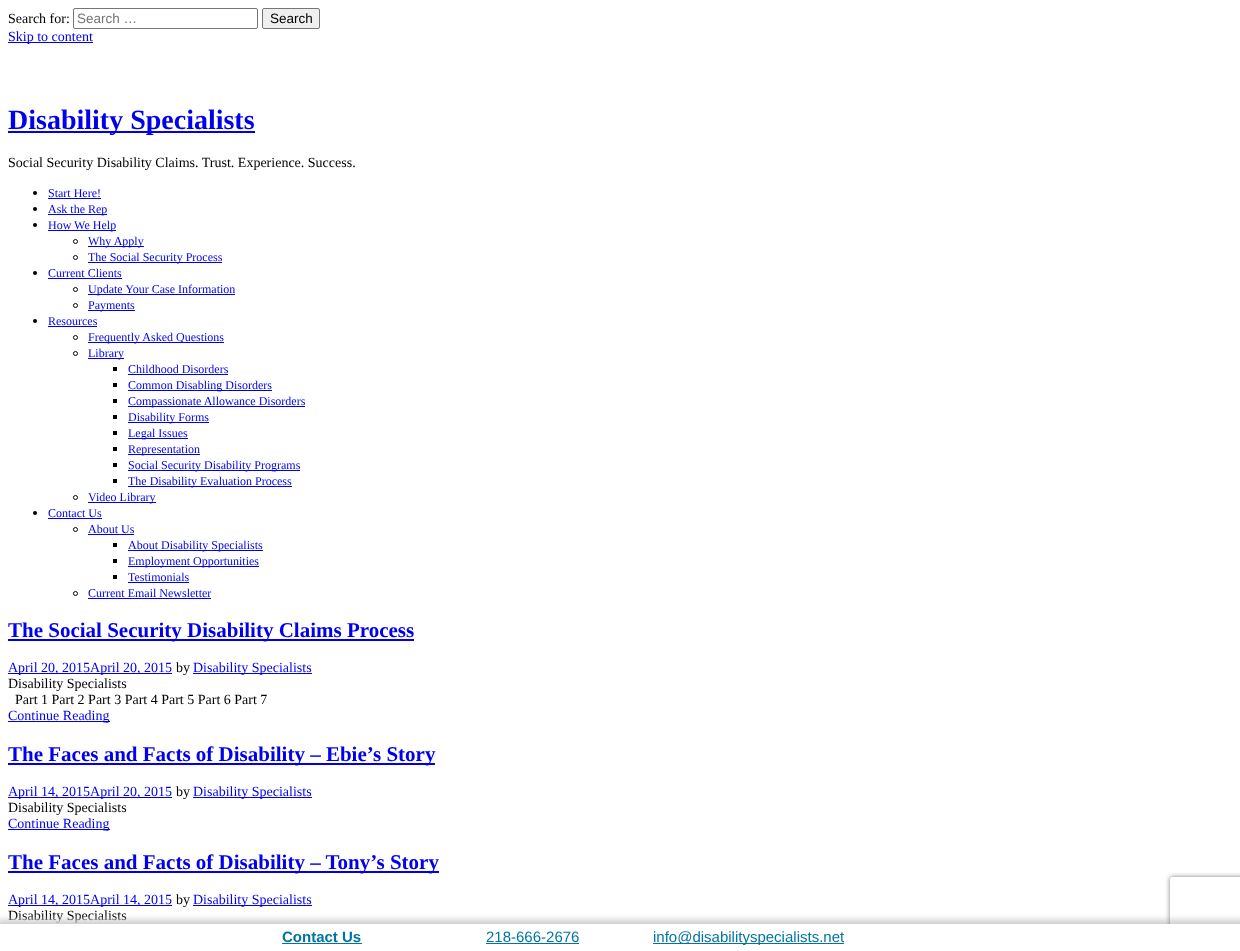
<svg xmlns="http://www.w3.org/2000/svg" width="1240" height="951">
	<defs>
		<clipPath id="clip1"><path d="M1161 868H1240V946H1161ZM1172 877H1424C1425 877 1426 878 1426 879V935C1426 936 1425 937 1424 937H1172C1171 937 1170 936 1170 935V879C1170 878 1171 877 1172 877Z" clip-rule="evenodd" /></clipPath>
	</defs>
	<rect width="100%" height="100%" fill="#FFFFFF" />
	<text x="8" y="23" font-family="Liberation Serif" font-size="14" fill="#000000">Search for:</text>
	<rect x="73.5" y="8.5" width="184" height="20" rx="1.5" fill="none" stroke="#767676" />
	<text x="77" y="23" font-family="Liberation Sans" font-size="13.5" fill="#757575">Search …</text>
	<rect x="262.5" y="8.5" width="57" height="20" rx="1.5" fill="#EFEFEF" stroke="#767676" />
	<text x="270" y="23" font-family="Liberation Sans" font-size="13.5" fill="#000000">Search</text>
	<rect x="8" y="42" width="85" height="1" fill="#0000EE" />
	<text x="8" y="41" font-family="Liberation Serif" font-size="14" fill="#0000EE">Skip to content</text>
	<rect x="8" y="131" width="247" height="2" fill="#0000EE" />
	<text x="8" y="129" font-family="Liberation Serif" font-size="28" font-weight="700" fill="#0000EE">Disability Specialists</text>
	<text x="8" y="167" font-family="Liberation Serif" font-size="14" fill="#000000">Social Security Disability Claims. Trust. Experience. Success.</text>
	<circle cx="35" cy="193" r="2" fill="#000000" />
	<text x="48" y="197" font-family="Liberation Serif" font-size="12" fill="#0000EE">Start Here!</text>
	<rect x="48" y="198" width="53" height="1" fill="#0000EE" />
	<circle cx="35" cy="209" r="2" fill="#000000" />
	<rect x="48" y="214" width="59" height="1" fill="#0000EE" />
	<text x="48" y="213" font-family="Liberation Serif" font-size="12" fill="#0000EE">Ask the Rep</text>
	<circle cx="35" cy="225" r="2" fill="#000000" />
	<rect x="48" y="230" width="68" height="1" fill="#0000EE" />
	<text x="48" y="229" font-family="Liberation Serif" font-size="12" fill="#0000EE">How We Help</text>
	<circle cx="75.5" cy="241.5" r="2" fill="none" stroke="#000000" />
	<rect x="88" y="246" width="56" height="1" fill="#0000EE" />
	<text x="88" y="245" font-family="Liberation Serif" font-size="12" fill="#0000EE">Why Apply</text>
	<circle cx="75.5" cy="257.5" r="2" fill="none" stroke="#000000" />
	<rect x="88" y="262" width="134" height="1" fill="#0000EE" />
	<text x="88" y="261" font-family="Liberation Serif" font-size="12" fill="#0000EE">The Social Security Process</text>
	<circle cx="35" cy="273" r="2" fill="#000000" />
	<text x="48" y="277" font-family="Liberation Serif" font-size="12" fill="#0000EE">Current Clients</text>
	<rect x="48" y="278" width="74" height="1" fill="#0000EE" />
	<circle cx="75.5" cy="289.5" r="2" fill="none" stroke="#000000" />
	<rect x="88" y="294" width="147" height="1" fill="#0000EE" />
	<text x="88" y="293" font-family="Liberation Serif" font-size="12" fill="#0000EE">Update Your Case Information</text>
	<circle cx="75.5" cy="305.5" r="2" fill="none" stroke="#000000" />
	<rect x="88" y="310" width="47" height="1" fill="#0000EE" />
	<text x="88" y="309" font-family="Liberation Serif" font-size="12" fill="#0000EE">Payments</text>
	<circle cx="35" cy="321" r="2" fill="#000000" />
	<text x="48" y="325" font-family="Liberation Serif" font-size="12" fill="#0000EE">Resources</text>
	<rect x="48" y="326" width="49" height="1" fill="#0000EE" />
	<circle cx="75.5" cy="337.5" r="2" fill="none" stroke="#000000" />
	<rect x="88" y="342" width="136" height="1" fill="#0000EE" />
	<text x="88" y="341" font-family="Liberation Serif" font-size="12" fill="#0000EE">Frequently Asked Questions</text>
	<circle cx="75.5" cy="353.5" r="2" fill="none" stroke="#000000" />
	<rect x="88" y="358" width="36" height="1" fill="#0000EE" />
	<text x="88" y="357" font-family="Liberation Serif" font-size="12" fill="#0000EE">Library</text>
	<rect x="113" y="367" width="4" height="4" fill="#000000" />
	<text x="128" y="373" font-family="Liberation Serif" font-size="12" fill="#0000EE">Childhood Disorders</text>
	<rect x="128" y="374" width="100" height="1" fill="#0000EE" />
	<rect x="113" y="383" width="4" height="4" fill="#000000" />
	<rect x="128" y="390" width="144" height="1" fill="#0000EE" />
	<text x="128" y="389" font-family="Liberation Serif" font-size="12" fill="#0000EE">Common Disabling Disorders</text>
	<rect x="113" y="399" width="4" height="4" fill="#000000" />
	<rect x="128" y="406" width="177" height="1" fill="#0000EE" />
	<text x="128" y="405" font-family="Liberation Serif" font-size="12" fill="#0000EE">Compassionate Allowance Disorders</text>
	<rect x="113" y="415" width="4" height="4" fill="#000000" />
	<rect x="128" y="422" width="81" height="1" fill="#0000EE" />
	<text x="128" y="421" font-family="Liberation Serif" font-size="12" fill="#0000EE">Disability Forms</text>
	<rect x="113" y="431" width="4" height="4" fill="#000000" />
	<rect x="128" y="438" width="60" height="1" fill="#0000EE" />
	<text x="128" y="437" font-family="Liberation Serif" font-size="12" fill="#0000EE">Legal Issues</text>
	<rect x="113" y="447" width="4" height="4" fill="#000000" />
	<rect x="128" y="454" width="72" height="1" fill="#0000EE" />
	<text x="128" y="453" font-family="Liberation Serif" font-size="12" fill="#0000EE">Representation</text>
	<rect x="113" y="463" width="4" height="4" fill="#000000" />
	<rect x="128" y="470" width="172" height="1" fill="#0000EE" />
	<text x="128" y="469" font-family="Liberation Serif" font-size="12" fill="#0000EE">Social Security Disability Programs</text>
	<rect x="113" y="479" width="4" height="4" fill="#000000" />
	<rect x="128" y="486" width="164" height="1" fill="#0000EE" />
	<text x="128" y="485" font-family="Liberation Serif" font-size="12" fill="#0000EE">The Disability Evaluation Process</text>
	<circle cx="75.5" cy="497.5" r="2" fill="none" stroke="#000000" />
	<rect x="88" y="502" width="68" height="1" fill="#0000EE" />
	<text x="88" y="501" font-family="Liberation Serif" font-size="12" fill="#0000EE">Video Library</text>
	<circle cx="35" cy="513" r="2" fill="#000000" />
	<text x="48" y="517" font-family="Liberation Serif" font-size="12" fill="#0000EE">Contact Us</text>
	<rect x="48" y="518" width="54" height="1" fill="#0000EE" />
	<circle cx="75.5" cy="529.5" r="2" fill="none" stroke="#000000" />
	<text x="88" y="533" font-family="Liberation Serif" font-size="12" fill="#0000EE">About Us</text>
	<rect x="88" y="534" width="46" height="1" fill="#0000EE" />
	<rect x="113" y="543" width="4" height="4" fill="#000000" />
	<rect x="128" y="550" width="135" height="1" fill="#0000EE" />
	<text x="128" y="549" font-family="Liberation Serif" font-size="12" fill="#0000EE">About Disability Specialists</text>
	<rect x="113" y="559" width="4" height="4" fill="#000000" />
	<rect x="128" y="566" width="131" height="1" fill="#0000EE" />
	<text x="128" y="565" font-family="Liberation Serif" font-size="12" fill="#0000EE">Employment Opportunities</text>
	<rect x="113" y="575" width="4" height="4" fill="#000000" />
	<text x="128" y="581" font-family="Liberation Serif" font-size="12" fill="#0000EE">Testimonials</text>
	<rect x="128" y="582" width="61" height="1" fill="#0000EE" />
	<circle cx="75.5" cy="593.5" r="2" fill="none" stroke="#000000" />
	<text x="88" y="597" font-family="Liberation Serif" font-size="12" fill="#0000EE">Current Email Newsletter</text>
	<rect x="88" y="598" width="123" height="1" fill="#0000EE" />
	<rect x="8" y="639" width="406" height="2" fill="#0000EE" />
	<text x="8" y="637" font-family="Liberation Serif" font-size="21" font-weight="700" fill="#0000EE">The Social Security Disability Claims Process</text>
	<rect x="8" y="673" width="164" height="1" fill="#0000EE" />
	<text x="8" y="672" font-family="Liberation Serif" font-size="14" fill="#0000EE">April 20, 2015April 20, 2015</text>
	<text x="176" y="672" font-family="Liberation Serif" font-size="14" fill="#000000">by</text>
	<rect x="193" y="673" width="119" height="1" fill="#0000EE" />
	<text x="193" y="672" font-family="Liberation Serif" font-size="14" fill="#0000EE">Disability Specialists</text>
	<g font-family="Liberation Serif" font-size="14" fill="#000000">
		<text x="8" y="688">Disability Specialists</text>
		<text x="15" y="704">Part 1 Part 2 Part 3 Part 4 Part 5 Part 6 Part 7</text>
	</g>
	<rect x="8" y="721" width="102" height="1" fill="#0000EE" />
	<text x="8" y="720" font-family="Liberation Serif" font-size="14" fill="#0000EE">Continue Reading</text>
	<rect x="8" y="763" width="427" height="2" fill="#0000EE" />
	<text x="8" y="761" font-family="Liberation Serif" font-size="21" font-weight="700" fill="#0000EE">The Faces and Facts of Disability – Ebie’s Story</text>
	<rect x="8" y="797" width="164" height="1" fill="#0000EE" />
	<text x="8" y="796" font-family="Liberation Serif" font-size="14" fill="#0000EE">April 14, 2015April 20, 2015</text>
	<text x="176" y="796" font-family="Liberation Serif" font-size="14" fill="#000000">by</text>
	<rect x="193" y="797" width="119" height="1" fill="#0000EE" />
	<text x="193" y="796" font-family="Liberation Serif" font-size="14" fill="#0000EE">Disability Specialists</text>
	<text x="8" y="812" font-family="Liberation Serif" font-size="14" fill="#000000">Disability Specialists</text>
	<rect x="8" y="829" width="102" height="1" fill="#0000EE" />
	<text x="8" y="828" font-family="Liberation Serif" font-size="14" fill="#0000EE">Continue Reading</text>
	<rect x="8" y="871" width="431" height="2" fill="#0000EE" />
	<text x="8" y="869" font-family="Liberation Serif" font-size="21" font-weight="700" fill="#0000EE">The Faces and Facts of Disability – Tony’s Story</text>
	<rect x="8" y="905" width="164" height="1" fill="#0000EE" />
	<text x="8" y="904" font-family="Liberation Serif" font-size="14" fill="#0000EE">April 14, 2015April 14, 2015</text>
	<text x="176" y="904" font-family="Liberation Serif" font-size="14" fill="#000000">by</text>
	<rect x="193" y="905" width="119" height="1" fill="#0000EE" />
	<text x="193" y="904" font-family="Liberation Serif" font-size="14" fill="#0000EE">Disability Specialists</text>
	<text x="8" y="920" font-family="Liberation Serif" font-size="14" fill="#000000">Disability Specialists</text>
	<rect x="-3" y="920" width="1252" height="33" fill="#CCCCCC" filter="blur(3px)" />
	<g clip-path="url(#clip1)">
		<rect x="1170" y="877" width="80" height="60" rx="2" fill="#808080" filter="blur(2.5px)" />
	</g>
	<rect x="0" y="924" width="1240" height="27" fill="#FFFFFF" />
	<text x="282" y="942" font-family="Liberation Sans" font-size="15" font-weight="700" fill="#0074A2">Contact Us</text>
	<rect x="282" y="943" width="80" height="1" fill="#0074A2" />
	<text x="486" y="942" font-family="Liberation Sans" font-size="15" fill="#0074A2">218-666-2676</text>
	<rect x="486" y="943" width="93" height="1" fill="#0074A2" />
	<rect x="653" y="943" width="191" height="1" fill="#0074A2" />
	<text x="653" y="942" font-family="Liberation Sans" font-size="15" fill="#0074A2">info@disabilityspecialists.net</text>
</svg>
